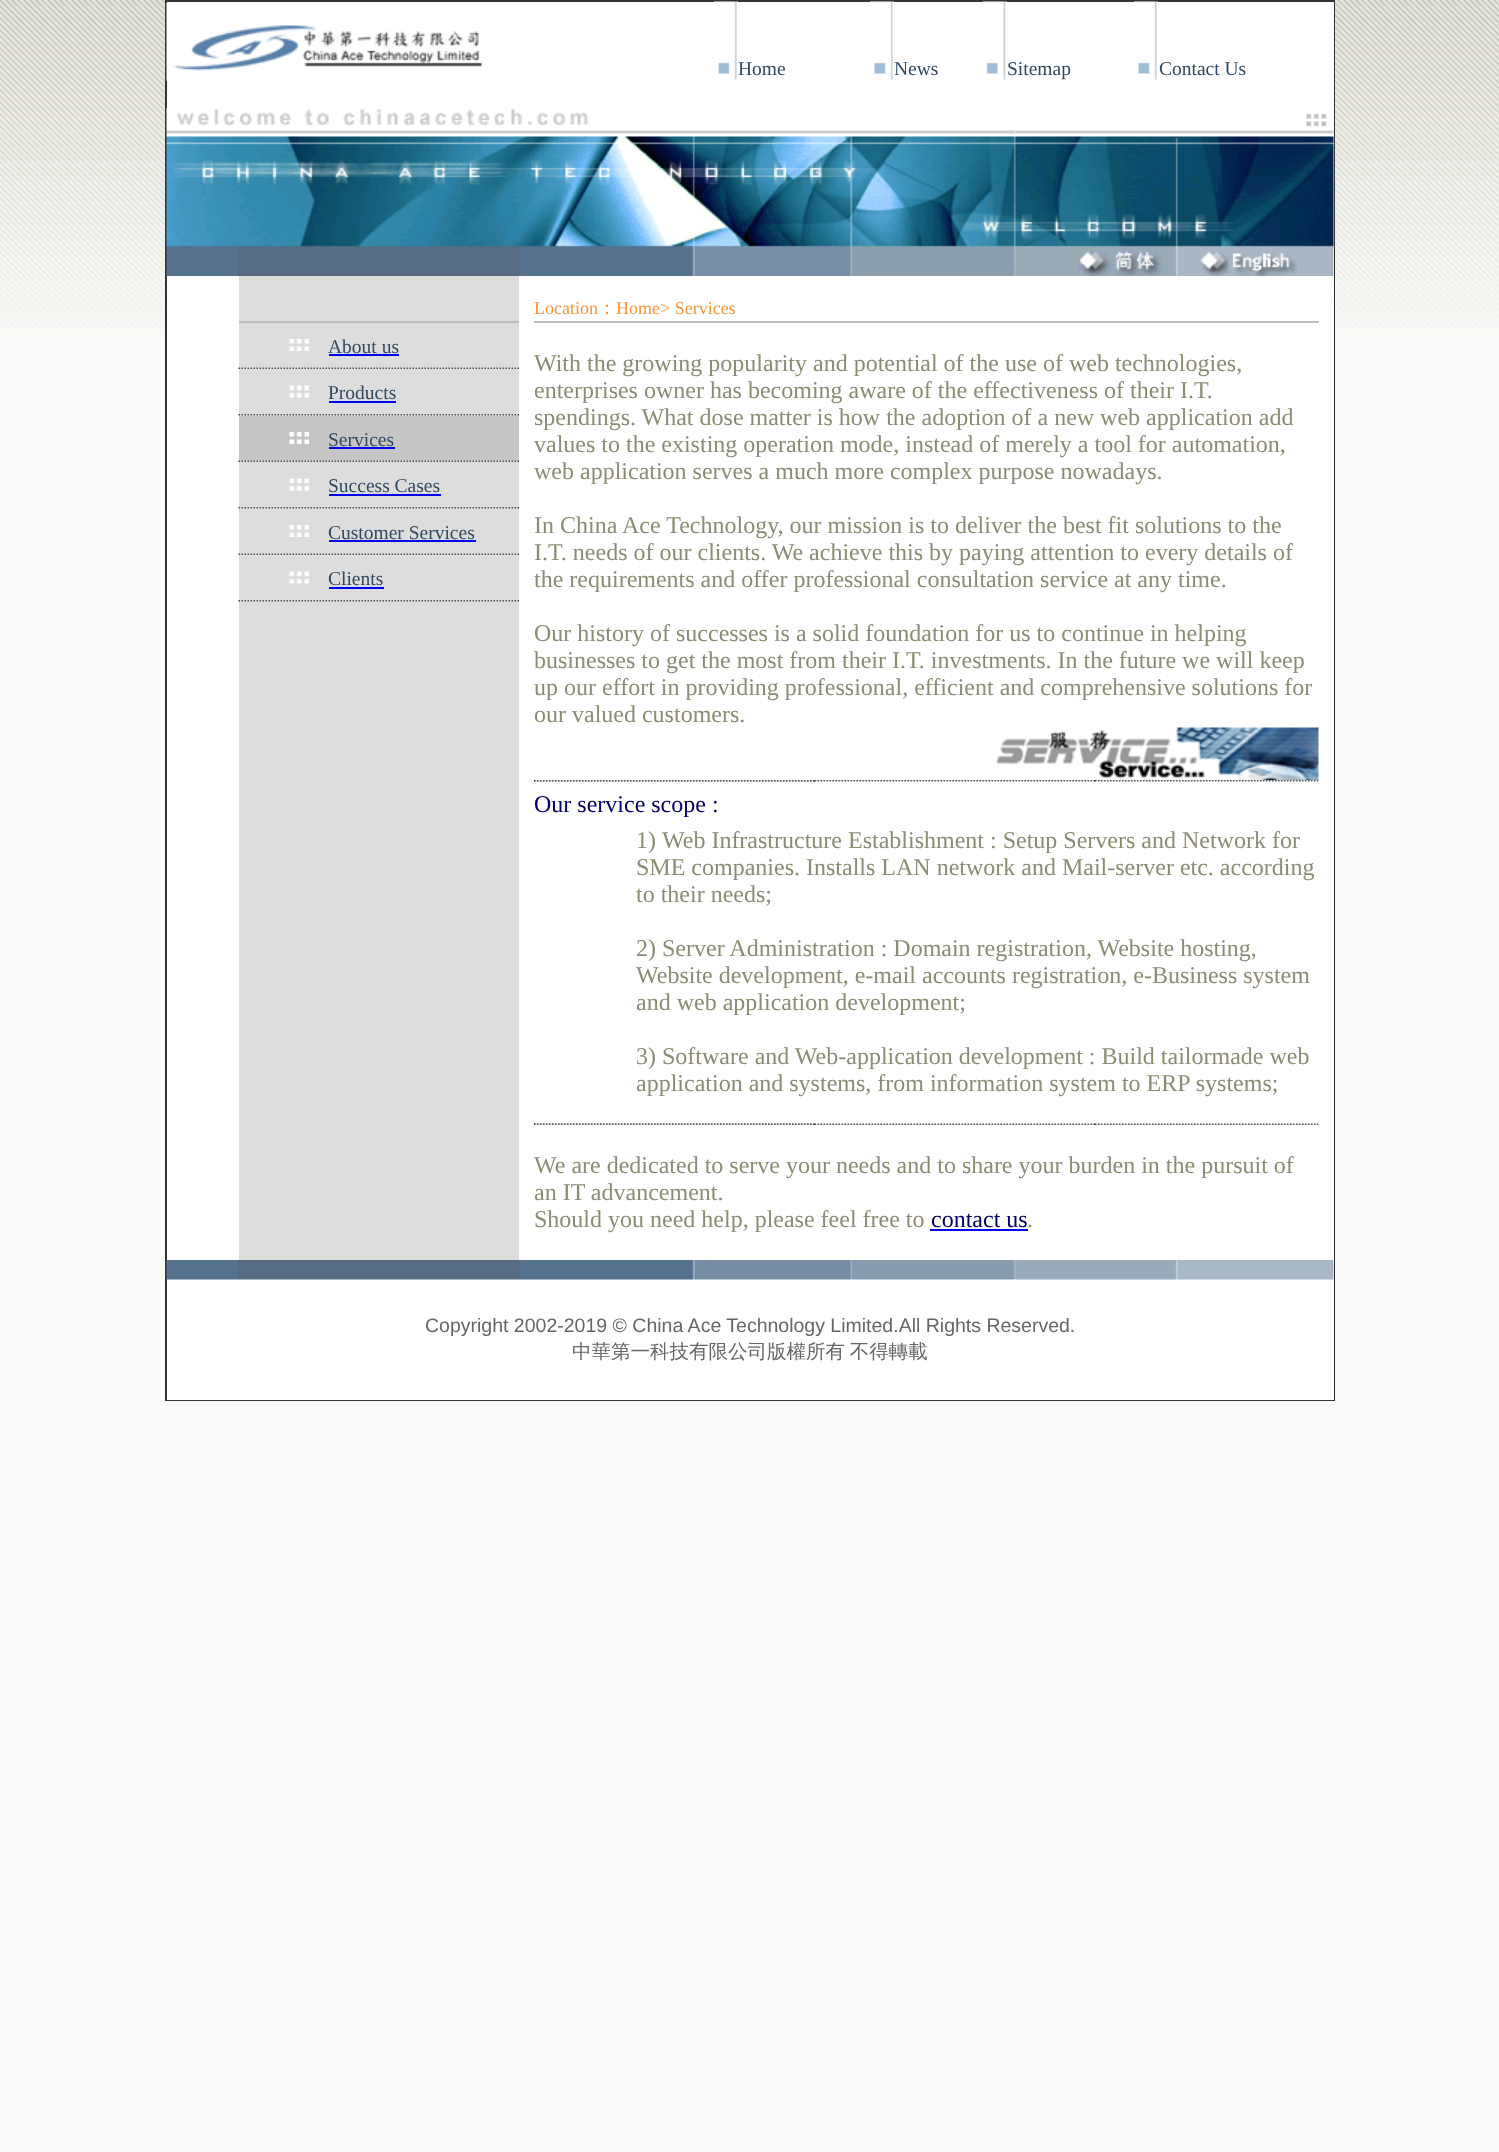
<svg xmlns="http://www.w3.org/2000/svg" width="1499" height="2152">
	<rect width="100%" height="100%" fill="#F9F9F7" />
	<image x="0" y="0" width="1499" height="334" href="assets/img1.png" />
	<rect x="165" y="0" width="1170" height="1401" fill="#333333" />
	<rect x="167" y="2" width="1167" height="1398" fill="#FFFFFF" />
	<image x="166" y="3" width="316" height="78" href="assets/img2.png" />
	<image x="714" y="1" width="24" height="79" href="assets/img3.png" />
	<text x="738" y="75" font-family="Liberation Serif" font-size="19.5" fill="#314961">Home</text>
	<image x="870" y="1" width="24" height="79" href="assets/img4.png" />
	<text x="894" y="75" font-family="Liberation Serif" font-size="19.5" fill="#314961">News</text>
	<image x="982" y="1" width="25" height="79" href="assets/img5.png" />
	<text x="1007" y="75" font-family="Liberation Serif" font-size="19.5" fill="#314961">Sitemap</text>
	<image x="1134" y="1" width="24" height="79" href="assets/img3.png" />
	<text x="1159" y="75" font-family="Liberation Serif" font-size="19.5" fill="#314961">Contact Us</text>
	<image x="166" y="108" width="1168" height="168" href="assets/img6.png" />
	<rect x="239" y="276" width="280" height="984" fill="#DDDDDD" />
	<rect x="239" y="321" width="280" height="2" fill="#BCBDBD" />
	<image x="289" y="339" width="20" height="12" href="assets/img7.png" />
	<text x="328" y="353" font-family="Liberation Serif" font-size="19.5" fill="#314961">About us</text>
	<rect x="329" y="354" width="70" height="2" fill="#0000EE" />
	<image x="238" y="367" width="281" height="2" href="assets/img8.png" />
	<image x="289" y="385" width="20" height="13" href="assets/img9.png" />
	<text x="328" y="399" font-family="Liberation Serif" font-size="19.5" fill="#314961">Products</text>
	<rect x="329" y="401" width="67" height="2" fill="#0000EE" />
	<image x="238" y="414" width="281" height="2" href="assets/img10.png" />
	<rect x="239" y="416" width="280" height="45" fill="#C6C6C6" />
	<image x="289" y="432" width="20" height="12" href="assets/img11.png" />
	<text x="328" y="446" font-family="Liberation Serif" font-size="19.5" fill="#314961">Services</text>
	<rect x="329" y="447" width="66" height="2" fill="#0000EE" />
	<image x="238" y="460" width="281" height="2" href="assets/img12.png" />
	<image x="289" y="478" width="20" height="13" href="assets/img9.png" />
	<text x="328" y="492" font-family="Liberation Serif" font-size="19.5" fill="#314961">Success Cases</text>
	<rect x="329" y="494" width="112" height="2" fill="#0000EE" />
	<image x="238" y="507" width="281" height="2" href="assets/img10.png" />
	<image x="289" y="525" width="20" height="12" href="assets/img7.png" />
	<text x="328" y="539" font-family="Liberation Serif" font-size="19.5" fill="#314961">Customer Services</text>
	<rect x="329" y="540" width="147" height="2" fill="#0000EE" />
	<image x="238" y="553" width="281" height="2" href="assets/img8.png" />
	<image x="289" y="571" width="20" height="13" href="assets/img9.png" />
	<text x="328" y="585" font-family="Liberation Serif" font-size="19.5" fill="#314961">Clients</text>
	<rect x="329" y="587" width="55" height="2" fill="#0000EE" />
	<image x="238" y="600" width="281" height="2" href="assets/img10.png" />
	<text x="534" y="314" font-family="Liberation Serif" font-size="18" fill="#F99439">Location</text>
	<text x="598" y="314" font-family="WenQuanYi Zen Hei" font-size="18" font-weight="500" fill="#F99439">：</text>
	<text x="616" y="314" font-family="Liberation Serif" font-size="18" fill="#F99439">Home&gt; Services</text>
	<rect x="534" y="321" width="785" height="2" fill="#BCBDBD" />
	<g font-family="Liberation Serif" font-size="24" fill="#8C8C73">
		<text x="534" y="371">With the growing popularity and potential of the use of web technologies,</text>
		<text x="534" y="398">enterprises owner has becoming aware of the effectiveness of their I.T.</text>
		<text x="534" y="425">spendings. What dose matter is how the adoption of a new web application add</text>
		<text x="534" y="452">values to the existing operation mode, instead of merely a tool for automation,</text>
		<text x="534" y="479">web application serves a much more complex purpose nowadays.</text>
		<text x="534" y="533">In China Ace Technology, our mission is to deliver the best fit solutions to the</text>
		<text x="534" y="560">I.T. needs of our clients. We achieve this by paying attention to every details of</text>
		<text x="534" y="587">the requirements and offer professional consultation service at any time.</text>
		<text x="534" y="641">Our history of successes is a solid foundation for us to continue in helping</text>
		<text x="534" y="668">businesses to get the most from their I.T. investments. In the future we will keep</text>
		<text x="534" y="695">up our effort in providing professional, efficient and comprehensive solutions for</text>
		<text x="534" y="722">our valued customers.</text>
	</g>
	<image x="996" y="727" width="323" height="53" href="assets/img13.png" />
	<image x="534" y="780" width="785" height="2" href="assets/img14.png" />
	<image x="534" y="780" width="281" height="2" href="assets/img15.png" />
	<text x="534" y="812" font-family="Liberation Serif" font-size="24" fill="#000066">Our service scope :</text>
	<g font-family="Liberation Serif" font-size="24" fill="#8C8C73">
		<text x="636" y="848">1)</text>
		<text x="662" y="848">Web Infrastructure Establishment : Setup Servers and Network for</text>
		<text x="636" y="875">SME companies. Installs LAN network and Mail-server etc. according</text>
		<text x="636" y="902">to their needs;</text>
		<text x="636" y="956">2) Server Administration : Domain registration, Website hosting,</text>
		<text x="636" y="983">Website development, e-mail accounts registration, e-Business system</text>
		<text x="636" y="1010">and web application development;</text>
		<text x="636" y="1064">3) Software and Web-application development : Build tailormade web</text>
		<text x="636" y="1091">application and systems, from information system to ERP systems;</text>
	</g>
	<image x="534" y="1123" width="785" height="2" href="assets/img16.png" />
	<image x="534" y="1123" width="281" height="2" href="assets/img17.png" />
	<g font-family="Liberation Serif" font-size="24" fill="#8C8C73">
		<text x="534" y="1173">We are dedicated to serve your needs and to share your burden in the pursuit of</text>
		<text x="534" y="1200">an IT advancement.</text>
		<text x="534" y="1227">Should you need help, please feel free to</text>
	</g>
	<text x="931" y="1227" font-family="Liberation Serif" font-size="24" fill="#000066">contact us</text>
	<rect x="930" y="1229" width="98" height="2" fill="#0000EE" />
	<text x="1027" y="1227" font-family="Liberation Serif" font-size="24" fill="#8C8C73">.</text>
	<image x="166" y="1260" width="1168" height="20" href="assets/img18.png" />
	<text x="425" y="1332" font-family="Liberation Sans" font-size="19.5" fill="#666666">Copyright 2002-2019 © China Ace Technology Limited.All Rights Reserved.</text>
	<text x="572" y="1358" word-spacing="-1" font-family="WenQuanYi Zen Hei" font-size="19.5" font-weight="500" fill="#666666">中華第一科技有限公司版權所有 不得轉載</text>
</svg>
